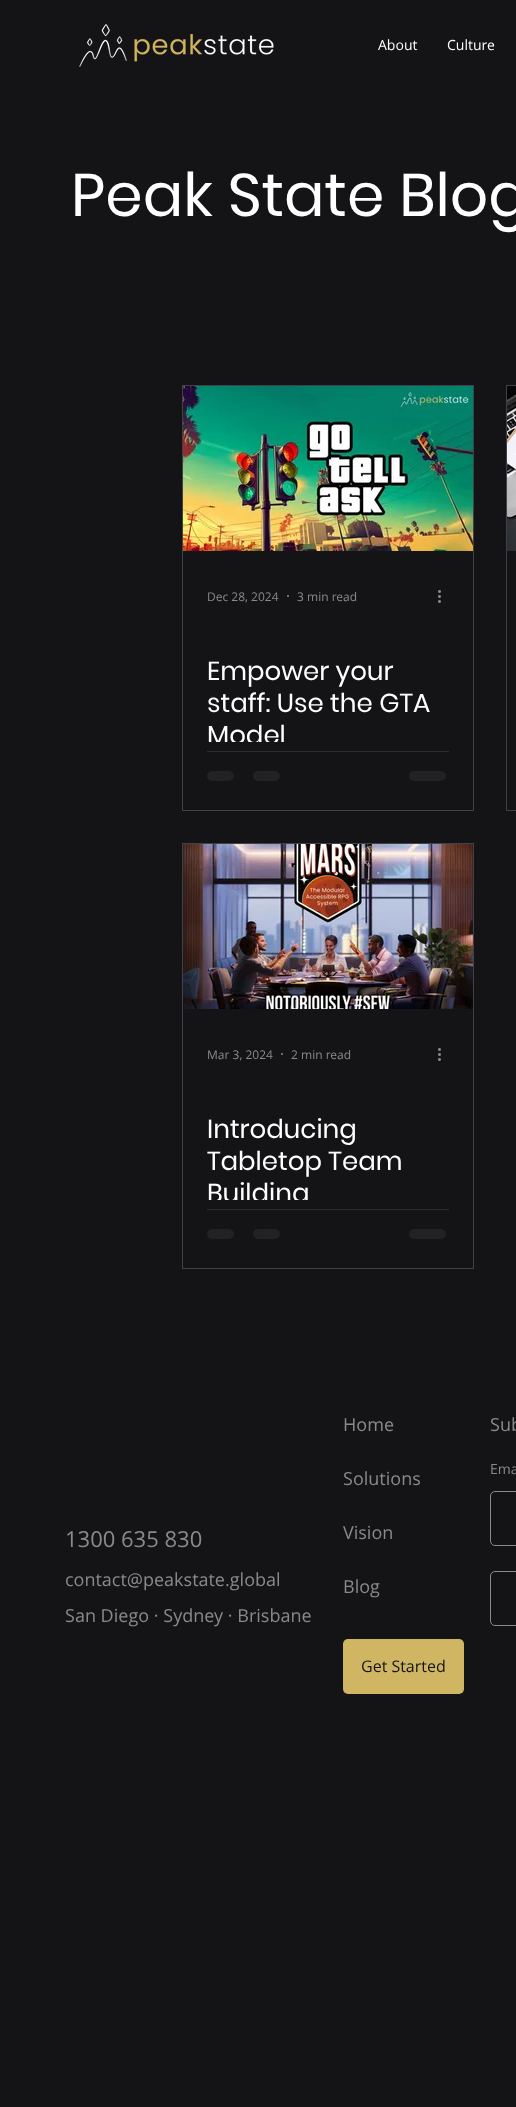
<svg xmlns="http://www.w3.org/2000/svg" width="516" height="2107">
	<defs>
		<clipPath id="clip1"><rect x="207" y="655" width="242" height="87" /></clipPath>
		<clipPath id="clip2"><rect x="207" y="1113" width="242" height="87" /></clipPath>
	</defs>
	<rect width="100%" height="100%" fill="#141416" />
	<image x="79" y="24" width="195" height="43" href="assets/img1.png" />
	<g font-family="Open Sans" font-size="14" fill="#FFFFFF">
		<text x="378" y="50">About</text>
		<text x="447" y="50">Culture</text>
	</g>
	<text x="71" y="216" font-family="Poppins" font-size="60" fill="#FFFFFF">Peak State Blog</text>
	<rect x="182.5" y="385.5" width="291" height="425" fill="none" stroke="#3F4349" />
	<image x="183" y="386" width="290" height="165" href="assets/img2.png" />
	<text x="207" y="601" font-family="Open Sans" font-size="12" fill="#8A8A8A">Dec 28, 2024</text>
	<circle cx="288" cy="596" r="1" fill="#8A8A8A" />
	<text x="297" y="601" font-family="Open Sans" font-size="12" fill="#8A8A8A">3 min read</text>
	<image x="438" y="590" width="3" height="13" href="assets/img3.png" />
	<g font-family="Poppins" font-size="26" fill="#FFFFFF">
		<text x="207" y="680">Empower your</text>
		<text x="207" y="712">staff: Use the GTA</text>
	</g>
	<g clip-path="url(#clip1)">
		<text x="207" y="744" font-family="Poppins" font-size="26" fill="#FFFFFF">Model</text>
	</g>
	<rect x="207" y="751" width="242" height="1" fill="#2C2C2D" />
	<rect x="207" y="771" width="27" height="10" rx="5" fill="#222224" />
	<rect x="253" y="771" width="27" height="10" rx="5" fill="#222224" />
	<rect x="409" y="771" width="37" height="10" rx="5" fill="#222224" />
	<rect x="506.5" y="385.5" width="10" height="425" fill="none" stroke="#3F4349" />
	<image x="507" y="386" width="9" height="165" href="assets/img4.png" />
	<rect x="182.5" y="843.5" width="291" height="425" fill="none" stroke="#3F4349" />
	<image x="183" y="844" width="290" height="165" href="assets/img5.png" />
	<text x="207" y="1059" font-family="Open Sans" font-size="12" fill="#8A8A8A">Mar 3, 2024</text>
	<circle cx="282" cy="1054" r="1" fill="#8A8A8A" />
	<text x="291" y="1059" font-family="Open Sans" font-size="12" fill="#8A8A8A">2 min read</text>
	<image x="438" y="1048" width="3" height="13" href="assets/img3.png" />
	<g font-family="Poppins" font-size="26" fill="#FFFFFF">
		<text x="207" y="1138">Introducing</text>
		<text x="207" y="1170">Tabletop Team</text>
	</g>
	<g clip-path="url(#clip2)">
		<text x="207" y="1202" font-family="Poppins" font-size="26" fill="#FFFFFF">Building</text>
	</g>
	<rect x="207" y="1209" width="242" height="1" fill="#2C2C2D" />
	<rect x="207" y="1229" width="27" height="10" rx="5" fill="#222224" />
	<rect x="253" y="1229" width="27" height="10" rx="5" fill="#222224" />
	<rect x="409" y="1229" width="37" height="10" rx="5" fill="#222224" />
	<text x="65" y="1547" font-family="Open Sans" font-size="22" fill="#8A8A8A">1300 635 830</text>
	<g font-family="Open Sans" font-size="18" fill="#8A8A8A">
		<text x="65" y="1586">contact@peakstate.global</text>
		<text x="65" y="1622">San Diego · Sydney · Brisbane</text>
		<text x="343" y="1431">Home</text>
		<text x="343" y="1485">Solutions</text>
		<text x="343" y="1539">Vision</text>
		<text x="343" y="1593">Blog</text>
	</g>
	<rect x="343" y="1639" width="121" height="55" rx="5" fill="#D0B562" />
	<text x="361" y="1672" font-family="Open Sans" font-size="16" fill="#141416">Get Started</text>
	<text x="490" y="1431" font-family="Open Sans" font-size="18" fill="#8A8A8A">Sub</text>
	<text x="490" y="1474" font-family="Open Sans" font-size="14" fill="#8A8A8A">Ema</text>
	<rect x="490.5" y="1491.5" width="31" height="54" rx="4.5" fill="none" stroke="#8A8A8A" />
	<rect x="490.5" y="1571.5" width="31" height="54" rx="4.5" fill="none" stroke="#8A8A8A" />
</svg>
